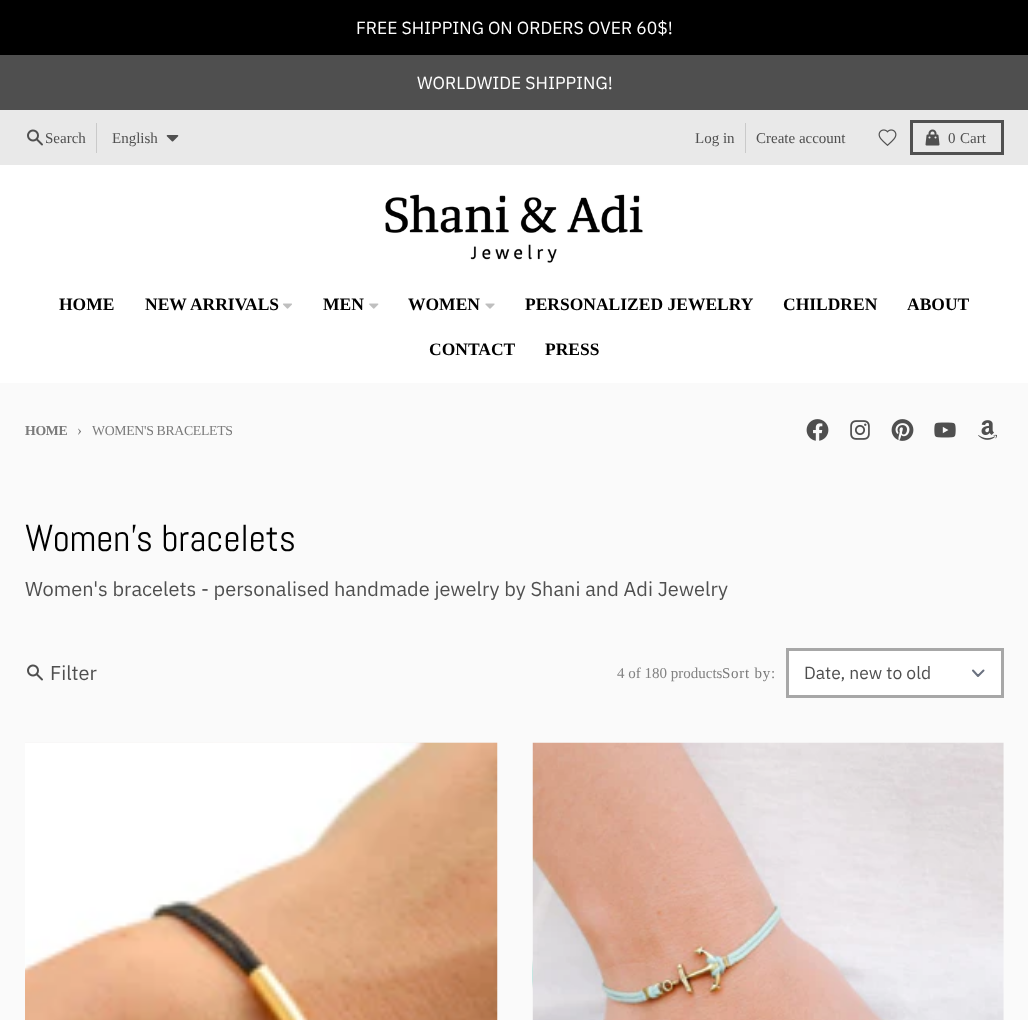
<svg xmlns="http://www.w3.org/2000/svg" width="1028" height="1020">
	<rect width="100%" height="100%" fill="#E9E9E9" />
	<rect x="0" y="0" width="1028" height="55" fill="#000000" />
	<text x="356" y="34" font-family="IBM Plex Sans" font-size="17.5" fill="#FFFFFF">FREE SHIPPING ON ORDERS OVER 60$!</text>
	<rect x="0" y="55" width="1028" height="55" fill="#4F4F4F" />
	<text x="417" y="89" font-family="IBM Plex Sans" font-size="17.5" fill="#FFFFFF">WORLDWIDE SHIPPING!</text>
	<image x="27" y="129" width="16" height="17" href="assets/img1.png" />
	<text x="45" y="143" font-family="Liberation Serif" font-size="15" fill="#4F4F4F">Search</text>
	<rect x="96" y="123" width="1" height="30" fill="#CACACA" />
	<text x="112" y="143" font-family="Liberation Serif" font-size="15" fill="#4F4F4F">English</text>
	<image x="166" y="135" width="13" height="7" href="assets/img2.png" />
	<text x="695" y="143" font-family="Liberation Serif" font-size="15" fill="#4F4F4F">Log in</text>
	<rect x="745" y="123" width="1" height="30" fill="#CACACA" />
	<text x="756" y="143" font-family="Liberation Serif" font-size="15" fill="#4F4F4F">Create account</text>
	<image x="878" y="129" width="19" height="17" href="assets/img3.png" />
	<rect x="911.5" y="121.5" width="91" height="32" fill="none" stroke="#505050" stroke-width="3" />
	<image x="925" y="129" width="15" height="17" href="assets/img4.png" />
	<g font-family="Liberation Serif" font-size="15" fill="#4F4F4F">
		<text x="948" y="143">0</text>
		<text x="960" y="143">Cart</text>
	</g>
	<rect x="0" y="165" width="1028" height="218" fill="#FFFFFF" />
	<image x="385" y="194" width="258" height="69" href="assets/img5.png" />
	<g font-family="Liberation Serif" font-size="17.5" font-weight="700" fill="#000000">
		<text x="59" y="310">HOME</text>
		<text x="145" y="310">NEW ARRIVALS</text>
	</g>
	<image x="283" y="303" width="9" height="6" href="assets/img6.png" />
	<text x="323" y="310" font-family="Liberation Serif" font-size="17.5" font-weight="700" fill="#000000">MEN</text>
	<image x="369" y="303" width="10" height="6" href="assets/img7.png" />
	<text x="408" y="310" font-family="Liberation Serif" font-size="17.5" font-weight="700" fill="#000000">WOMEN</text>
	<image x="485" y="303" width="10" height="6" href="assets/img8.png" />
	<g font-family="Liberation Serif" font-size="17.5" font-weight="700" fill="#000000">
		<text x="525" y="310">PERSONALIZED JEWELRY</text>
		<text x="783" y="310">CHILDREN</text>
		<text x="907" y="310">ABOUT</text>
		<text x="429" y="355">CONTACT</text>
		<text x="545" y="355">PRESS</text>
	</g>
	<rect x="0" y="383" width="1028" height="637" fill="#FAFAFA" />
	<text x="25" y="435" font-family="Liberation Serif" font-size="13.75" font-weight="700" letter-spacing="-0.3" fill="#7A7A7A">HOME</text>
	<text x="77" y="435" font-family="Liberation Serif" font-size="15" letter-spacing="-0.3" fill="#7A7A7A">›</text>
	<text x="92" y="435" font-family="Liberation Serif" font-size="13.75" letter-spacing="-0.3" fill="#7A7A7A">WOMEN'S BRACELETS</text>
	<image x="806" y="419" width="23" height="22" href="assets/img9.png" />
	<image x="850" y="420" width="20" height="20" href="assets/img10.png" />
	<image x="891" y="419" width="23" height="22" href="assets/img11.png" />
	<image x="934" y="422" width="22" height="16" href="assets/img12.png" />
	<image x="978" y="420" width="19" height="20" href="assets/img13.png" />
	<text x="25" y="551" font-family="Abel" font-size="37.5" fill="#000000">Women's bracelets</text>
	<text x="25" y="596" font-family="IBM Plex Sans" font-size="20" fill="#4F4F4F">Women's bracelets - personalised handmade jewelry by Shani and Adi Jewelry</text>
	<image x="27" y="664" width="16" height="17" href="assets/img14.png" />
	<text x="50" y="680" font-family="IBM Plex Sans" font-size="20" fill="#4F4F4F">Filter</text>
	<text x="617" y="678" font-family="Liberation Serif" font-size="15" fill="#828282">4 of 180 products</text>
	<text x="722" y="678" font-family="Liberation Serif" font-size="15" letter-spacing="0.75" fill="#7A7A7A">Sort by:</text>
	<rect x="789" y="651" width="212" height="44" fill="#FFFFFF" />
	<path d="M973 670.5L978 676L983.5 670.5" fill="none" stroke="#6B7280" stroke-width="2" stroke-linecap="round" stroke-linejoin="round" />
	<rect x="787.5" y="649.5" width="215" height="47" fill="none" stroke="#A7A7A7" stroke-width="3" />
	<text x="804" y="679" font-family="IBM Plex Sans" font-size="17.5" fill="#4F4F4F">Date, new to old</text>
	<image x="25" y="742" width="473" height="1" href="assets/img15.png" />
	<image x="25" y="742" width="473" height="278" href="assets/img16.png" />
	<image x="532" y="743" width="1" height="277" href="assets/img18.png" />
	<image x="532" y="742" width="472" height="278" href="assets/img17.png" />
</svg>
